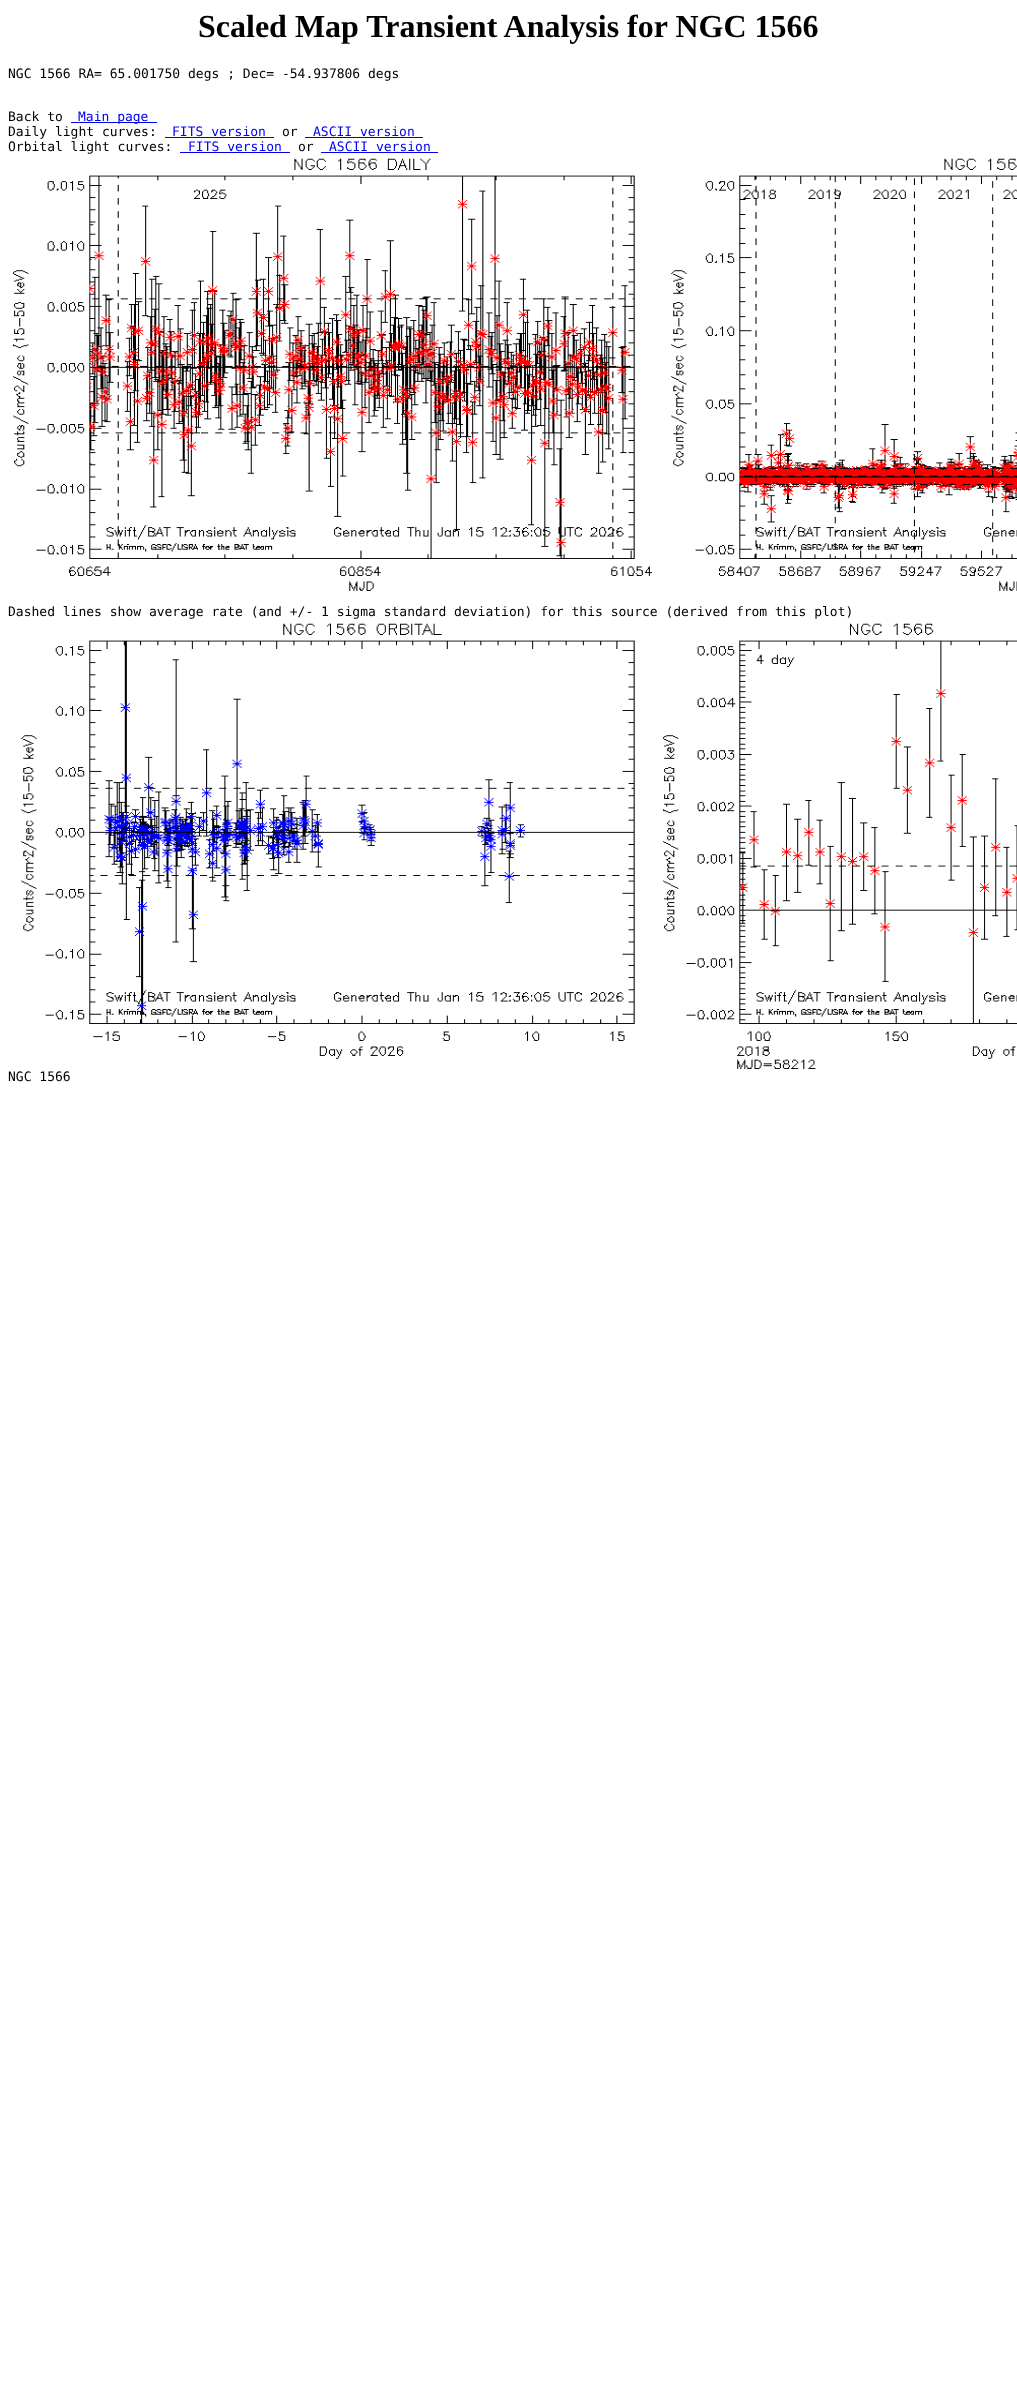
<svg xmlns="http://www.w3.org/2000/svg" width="1017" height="2389">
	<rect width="100%" height="100%" fill="#FFFFFF" />
	<text x="198" y="37" font-family="Liberation Serif" font-size="32" font-weight="700" fill="#000000">Scaled Map Transient Analysis for NGC 1566</text>
	<g font-family="DejaVu Sans Mono" font-size="13" fill="#000000">
		<text x="8" y="78">NGC 1566 RA= 65.001750 degs ; Dec= -54.937806 degs</text>
		<text x="8" y="121">Back to</text>
	</g>
	<rect x="71" y="122" width="86" height="1" fill="#0000EE" />
	<text x="78" y="121" font-family="DejaVu Sans Mono" font-size="13" fill="#0000EE">Main page</text>
	<text x="8" y="136" font-family="DejaVu Sans Mono" font-size="13" fill="#000000">Daily light curves:</text>
	<text x="172" y="136" font-family="DejaVu Sans Mono" font-size="13" fill="#0000EE">FITS version</text>
	<rect x="165" y="137" width="109" height="1" fill="#0000EE" />
	<text x="282" y="136" font-family="DejaVu Sans Mono" font-size="13" fill="#000000">or</text>
	<text x="313" y="136" font-family="DejaVu Sans Mono" font-size="13" fill="#0000EE">ASCII version</text>
	<rect x="305" y="137" width="118" height="1" fill="#0000EE" />
	<text x="8" y="151" font-family="DejaVu Sans Mono" font-size="13" fill="#000000">Orbital light curves:</text>
	<text x="188" y="151" font-family="DejaVu Sans Mono" font-size="13" fill="#0000EE">FITS version</text>
	<rect x="180" y="152" width="110" height="1" fill="#0000EE" />
	<text x="298" y="151" font-family="DejaVu Sans Mono" font-size="13" fill="#000000">or</text>
	<text x="329" y="151" font-family="DejaVu Sans Mono" font-size="13" fill="#0000EE">ASCII version</text>
	<rect x="321" y="152" width="117" height="1" fill="#0000EE" />
	<image x="13" y="158" width="639" height="433" href="assets/img1.png" />
	<image x="671" y="158" width="346" height="433" href="assets/img2.png" />
	<text x="8" y="616" font-family="DejaVu Sans Mono" font-size="13" fill="#000000">Dashed lines show average rate (and +/- 1 sigma standard deviation) for this source (derived from this plot)</text>
	<image x="21" y="623" width="614" height="436" href="assets/img3.png" />
	<image x="663" y="623" width="354" height="446" href="assets/img4.png" />
	<text x="8" y="1081" font-family="DejaVu Sans Mono" font-size="13" fill="#000000">NGC 1566</text>
</svg>
